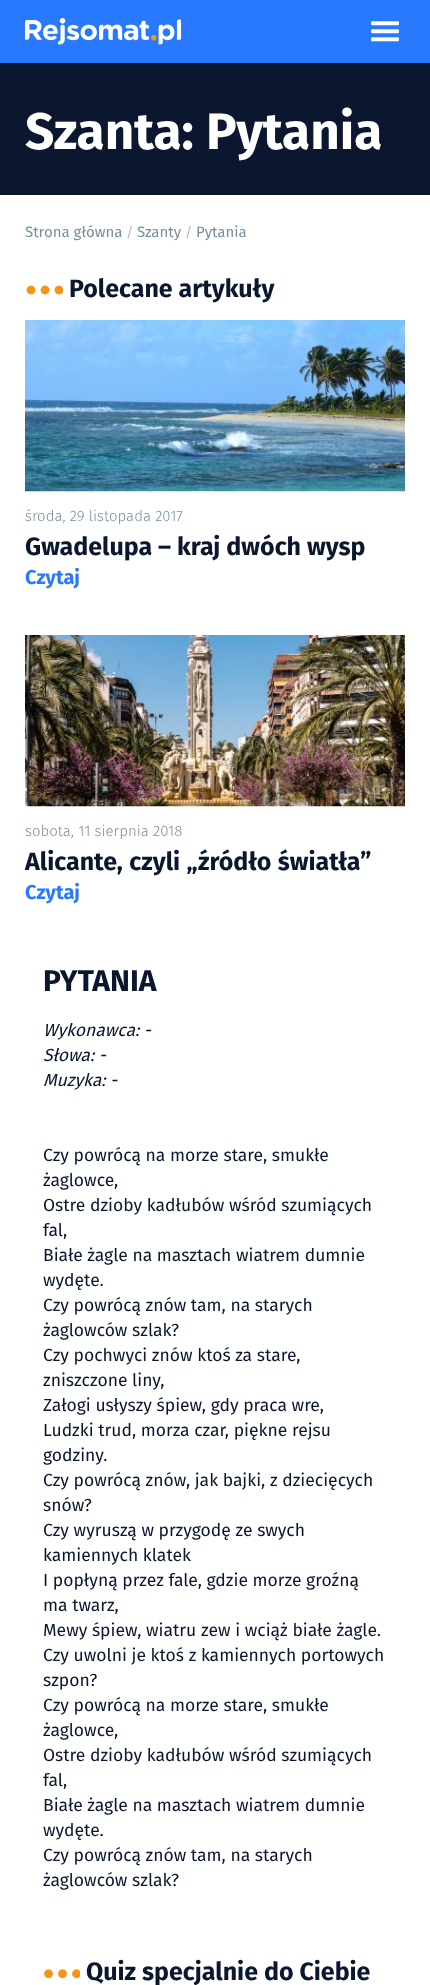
<svg xmlns="http://www.w3.org/2000/svg" width="430" height="1985">
	<rect width="100%" height="100%" fill="#FFFFFF" />
	<rect x="0" y="0" width="430" height="63" fill="#2979FF" />
	<image x="25" y="18" width="156" height="27" href="assets/img1.png" />
	<image x="371" y="21" width="28" height="21" href="assets/img2.png" />
	<rect x="0" y="63" width="430" height="132" fill="#0A172F" />
	<text x="25" y="149" font-family="Fira Sans" font-size="51.25" font-weight="700" fill="#FFFFFF">Szanta: Pytania</text>
	<text x="25" y="237" font-family="Fira Sans" font-size="15" fill="#78909C">Strona główna</text>
	<text x="126" y="237" font-family="Fira Sans" font-size="14" fill="#B8B8B8">/</text>
	<text x="137" y="237" font-family="Fira Sans" font-size="15" fill="#78909C">Szanty</text>
	<text x="185" y="237" font-family="Fira Sans" font-size="14" fill="#B8B8B8">/</text>
	<text x="196" y="237" font-family="Fira Sans" font-size="15" fill="#78909C">Pytania</text>
	<image x="26" y="285" width="37" height="10" href="assets/img3.png" />
	<text x="69" y="297" font-family="Fira Sans" font-size="25" font-weight="700" fill="#0A172F">Polecane artykuły</text>
	<image x="25" y="320" width="380" height="172" href="assets/img4.png" />
	<text x="25" y="521" font-family="Fira Sans" font-size="15" font-weight="300" fill="#78909C">środa, 29 listopada 2017</text>
	<text x="25" y="555" font-family="Fira Sans" font-size="25" font-weight="700" fill="#0A172F">Gwadelupa – kraj dwóch wysp</text>
	<text x="25" y="584" font-family="Fira Sans" font-size="20" font-weight="700" fill="#2979FF">Czytaj</text>
	<image x="25" y="635" width="380" height="172" href="assets/img5.png" />
	<text x="25" y="836" font-family="Fira Sans" font-size="15" font-weight="300" fill="#78909C">sobota, 11 sierpnia 2018</text>
	<text x="25" y="870" word-spacing="0.5" font-family="Fira Sans" font-size="25" font-weight="700" fill="#0A172F">Alicante, czyli „źródło światła”</text>
	<text x="25" y="899" font-family="Fira Sans" font-size="20" font-weight="700" fill="#2979FF">Czytaj</text>
	<text x="43" y="991" font-family="Fira Sans" font-size="30" font-weight="700" fill="#0A172F">PYTANIA</text>
	<g font-family="Fira Sans" font-size="17.5" font-style="italic" fill="#0A172F">
		<text x="43" y="1036">Wykonawca: -</text>
		<text x="43" y="1061">Słowa: -</text>
		<text x="43" y="1086">Muzyka: -</text>
	</g>
	<g font-family="Fira Sans" font-size="17.5" fill="#0A172F">
		<text x="43" y="1161">Czy powrócą na morze stare, smukłe</text>
		<text x="43" y="1186">żaglowce,</text>
		<text x="43" y="1211">Ostre dzioby kadłubów wśród szumiących</text>
		<text x="43" y="1236">fal,</text>
		<text x="43" y="1261">Białe żagle na masztach wiatrem dumnie</text>
		<text x="43" y="1286">wydęte.</text>
		<text x="43" y="1311">Czy powrócą znów tam, na starych</text>
		<text x="43" y="1336">żaglowców szlak?</text>
		<text x="43" y="1361">Czy pochwyci znów ktoś za stare,</text>
		<text x="43" y="1386">zniszczone liny,</text>
		<text x="43" y="1411">Załogi usłyszy śpiew, gdy praca wre,</text>
		<text x="43" y="1436">Ludzki trud, morza czar, piękne rejsu</text>
		<text x="43" y="1461">godziny.</text>
		<text x="43" y="1486">Czy powrócą znów, jak bajki, z dziecięcych</text>
		<text x="43" y="1511">snów?</text>
		<text x="43" y="1536">Czy wyruszą w przygodę ze swych</text>
		<text x="43" y="1561">kamiennych klatek</text>
		<text x="43" y="1586">I popłyną przez fale, gdzie morze groźną</text>
		<text x="43" y="1611">ma twarz,</text>
		<text x="43" y="1636">Mewy śpiew, wiatru zew i wciąż białe żagle.</text>
		<text x="43" y="1661">Czy uwolni je ktoś z kamiennych portowych</text>
		<text x="43" y="1686">szpon?</text>
		<text x="43" y="1711">Czy powrócą na morze stare, smukłe</text>
		<text x="43" y="1736">żaglowce,</text>
		<text x="43" y="1761">Ostre dzioby kadłubów wśród szumiących</text>
		<text x="43" y="1786">fal,</text>
		<text x="43" y="1811">Białe żagle na masztach wiatrem dumnie</text>
		<text x="43" y="1836">wydęte.</text>
		<text x="43" y="1861">Czy powrócą znów tam, na starych</text>
		<text x="43" y="1886">żaglowców szlak?</text>
	</g>
	<image x="44" y="1969" width="36" height="10" href="assets/img6.png" />
	<text x="86" y="1980" font-family="Fira Sans" font-size="25" font-weight="700" fill="#0A172F">Quiz specjalnie do Ciebie</text>
</svg>
